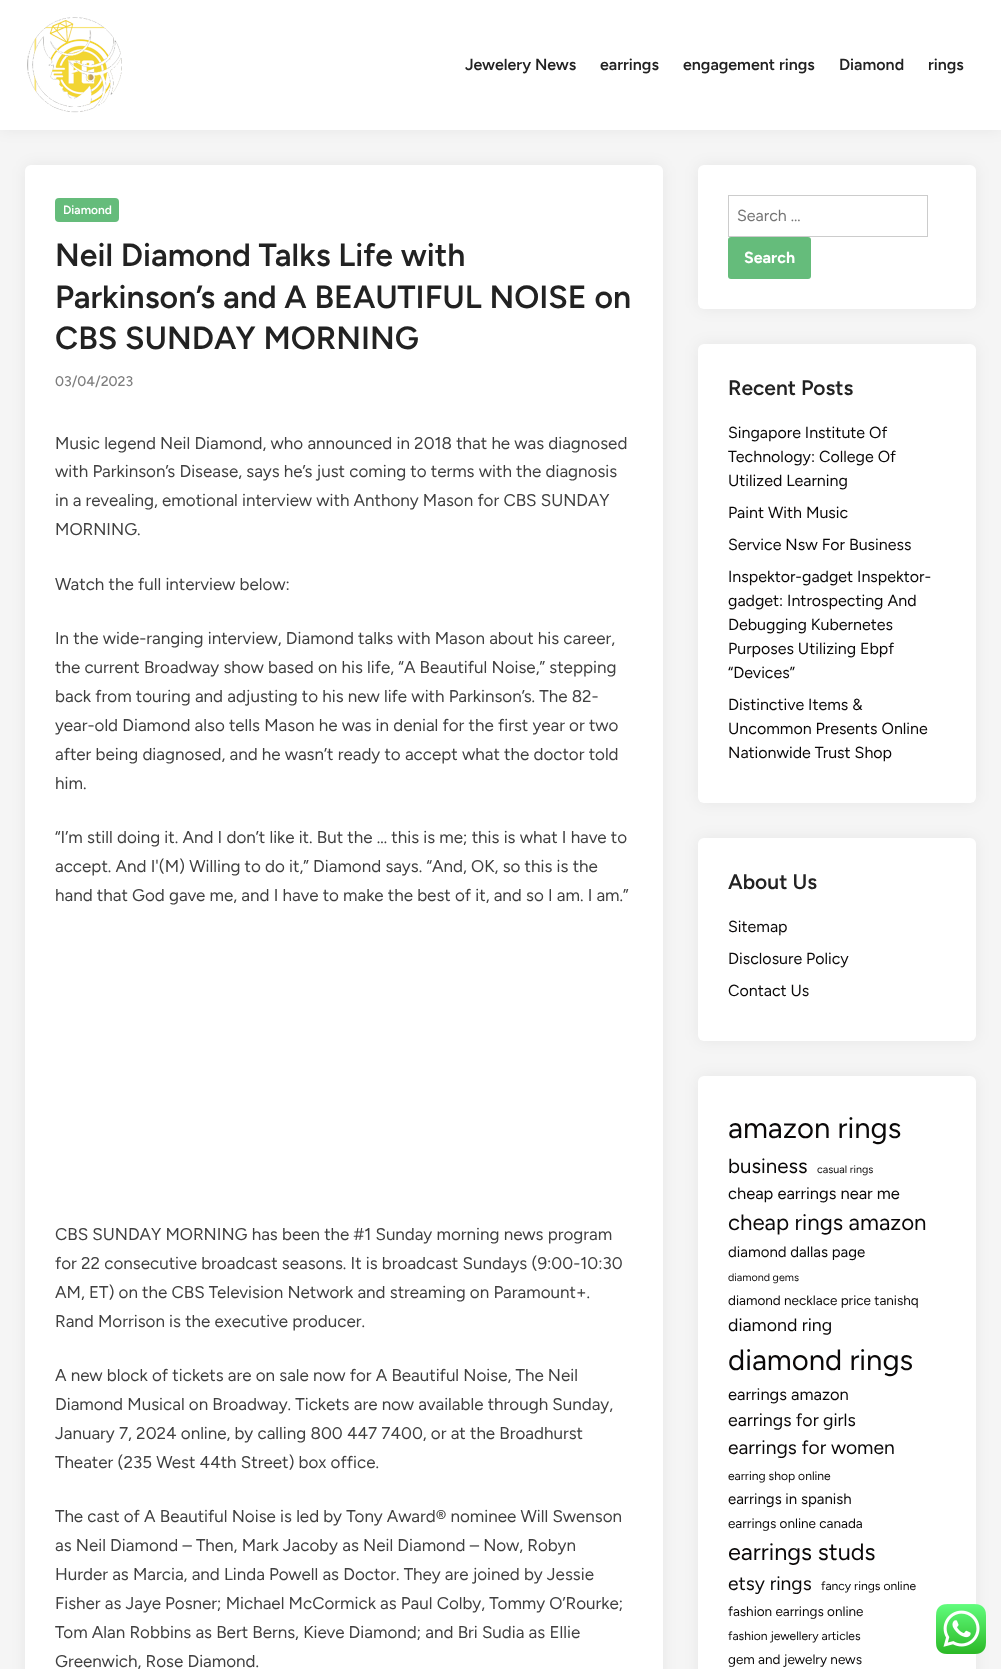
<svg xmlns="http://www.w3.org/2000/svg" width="1001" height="1669">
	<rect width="100%" height="100%" fill="#F5F5F5" />
	<rect x="0" y="0" width="1001" height="130" fill="#000000" fill-opacity="0.06" filter="blur(7.5px)" />
	<rect x="0" y="0" width="1001" height="130" fill="#FFFFFF" />
	<image x="27" y="17" width="95" height="96" href="assets/img1.png" />
	<g font-family="Figtree" font-size="16" font-weight="600" fill="#222222">
		<text x="465" y="70">Jewelery News</text>
		<text x="600" y="70">earrings</text>
		<text x="683" y="70">engagement rings</text>
		<text x="839" y="70">Diamond</text>
		<text x="928" y="70">rings</text>
	</g>
	<rect x="25" y="165" width="638" height="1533" rx="6" fill="#000000" fill-opacity="0.06" filter="blur(7.5px)" />
	<rect x="25" y="165" width="638" height="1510" rx="6" fill="#FFFFFF" />
	<rect x="55" y="198" width="64" height="24" rx="4" fill="#65BC7B" />
	<text x="63" y="214" font-family="Figtree" font-size="12" font-weight="600" fill="#FFFFFF">Diamond</text>
	<g font-family="Figtree" font-size="32" font-weight="600" fill="#222222">
		<text x="55" y="266">Neil Diamond Talks Life with</text>
		<text x="55" y="308">Parkinson’s and A BEAUTIFUL NOISE on</text>
		<text x="55" y="349">CBS SUNDAY MORNING</text>
	</g>
	<text x="55" y="386" font-family="Figtree" font-size="14" font-weight="500" fill="#7D7D7D">03/04/2023</text>
	<g font-family="Figtree" font-size="17" fill="#404040">
		<text x="55" y="449">Music legend Neil Diamond, who announced in 2018 that he was diagnosed</text>
		<text x="55" y="477">with Parkinson’s Disease, says he’s just coming to terms with the diagnosis</text>
		<text x="55" y="506">in a revealing, emotional interview with Anthony Mason for CBS SUNDAY</text>
		<text x="55" y="535">MORNING.</text>
		<text x="55" y="590">Watch the full interview below:</text>
		<text x="55" y="644">In the wide-ranging interview, Diamond talks with Mason about his career,</text>
		<text x="55" y="673">the current Broadway show based on his life, “A Beautiful Noise,” stepping</text>
		<text x="55" y="702">back from touring and adjusting to his new life with Parkinson’s. The 82-</text>
		<text x="55" y="731">year-old Diamond also tells Mason he was in denial for the first year or two</text>
		<text x="55" y="760">after being diagnosed, and he wasn’t ready to accept what the doctor told</text>
		<text x="55" y="789">him.</text>
		<text x="55" y="843">“I’m still doing it. And I don’t like it. But the … this is me; this is what I have to</text>
		<text x="55" y="872">accept. And I'(M) Willing to do it,” Diamond says. “And, OK, so this is the</text>
		<text x="55" y="901">hand that God gave me, and I have to make the best of it, and so I am. I am.”</text>
		<text x="55" y="1240">CBS SUNDAY MORNING has been the #1 Sunday morning news program</text>
		<text x="55" y="1269">for 22 consecutive broadcast seasons. It is broadcast Sundays (9:00-10:30</text>
		<text x="55" y="1298">AM, ET) on the CBS Television Network and streaming on Paramount+.</text>
		<text x="55" y="1327">Rand Morrison is the executive producer.</text>
		<text x="55" y="1381">A new block of tickets are on sale now for A Beautiful Noise, The Neil</text>
		<text x="55" y="1410">Diamond Musical on Broadway. Tickets are now available through Sunday,</text>
		<text x="55" y="1439">January 7, 2024 online, by calling 800 447 7400, or at the Broadhurst</text>
		<text x="55" y="1468">Theater (235 West 44th Street) box office.</text>
		<text x="55" y="1522">The cast of A Beautiful Noise is led by Tony Award® nominee Will Swenson</text>
		<text x="55" y="1551">as Neil Diamond – Then, Mark Jacoby as Neil Diamond – Now, Robyn</text>
		<text x="55" y="1580">Hurder as Marcia, and Linda Powell as Doctor. They are joined by Jessie</text>
		<text x="55" y="1609">Fisher as Jaye Posner; Michael McCormick as Paul Colby, Tommy O’Rourke;</text>
		<text x="55" y="1638">Tom Alan Robbins as Bert Berns, Kieve Diamond; and Bri Sudia as Ellie</text>
		<text x="55" y="1667">Greenwich, Rose Diamond.</text>
	</g>
	<rect x="698" y="165" width="278" height="144" rx="6" fill="#000000" fill-opacity="0.06" filter="blur(7.5px)" />
	<rect x="698" y="165" width="278" height="144" rx="6" fill="#FFFFFF" />
	<rect x="728.5" y="195.5" width="199" height="41" fill="none" stroke="#CCCCCC" />
	<text x="737" y="221" font-family="Figtree" font-size="16" fill="#757575">Search …</text>
	<rect x="728" y="237" width="83" height="42" rx="3" fill="#65BC7B" />
	<text x="744" y="263" font-family="Figtree" font-size="16" font-weight="700" fill="#FFFFFF">Search</text>
	<rect x="698" y="344" width="278" height="459" rx="6" fill="#000000" fill-opacity="0.06" filter="blur(7.5px)" />
	<rect x="698" y="344" width="278" height="459" rx="6" fill="#FFFFFF" />
	<text x="728" y="395" font-family="Figtree" font-size="21" font-weight="600" fill="#222222">Recent Posts</text>
	<g font-family="Figtree" font-size="16" fill="#0A0808">
		<text x="728" y="438">Singapore Institute Of</text>
		<text x="728" y="462">Technology: College Of</text>
		<text x="728" y="486">Utilized Learning</text>
		<text x="728" y="518">Paint With Music</text>
		<text x="728" y="550">Service Nsw For Business</text>
		<text x="728" y="582">Inspektor-gadget Inspektor-</text>
		<text x="728" y="606">gadget: Introspecting And</text>
		<text x="728" y="630">Debugging Kubernetes</text>
		<text x="728" y="654">Purposes Utilizing Ebpf</text>
		<text x="728" y="678">“Devices”</text>
		<text x="728" y="710">Distinctive Items &amp;</text>
		<text x="728" y="734">Uncommon Presents Online</text>
		<text x="728" y="758">Nationwide Trust Shop</text>
	</g>
	<rect x="698" y="838" width="278" height="203" rx="6" fill="#000000" fill-opacity="0.06" filter="blur(7.5px)" />
	<rect x="698" y="838" width="278" height="203" rx="6" fill="#FFFFFF" />
	<text x="728" y="889" font-family="Figtree" font-size="21" font-weight="600" fill="#222222">About Us</text>
	<g font-family="Figtree" font-size="16" fill="#0A0808">
		<text x="728" y="932">Sitemap</text>
		<text x="728" y="964">Disclosure Policy</text>
		<text x="728" y="996">Contact Us</text>
	</g>
	<rect x="698" y="1076" width="278" height="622" rx="6" fill="#000000" fill-opacity="0.06" filter="blur(7.5px)" />
	<rect x="698" y="1076" width="278" height="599" rx="6" fill="#FFFFFF" />
	<text x="728" y="1138" font-family="Figtree" font-size="29.25" fill="#0A0808">amazon rings</text>
	<text x="728" y="1173" font-family="Figtree" font-size="20.5" fill="#0A0808">business</text>
	<text x="817" y="1173" font-family="Figtree" font-size="10.75" fill="#0A0808">casual rings</text>
	<text x="728" y="1199" font-family="Figtree" font-size="16.5" fill="#0A0808">cheap earrings near me</text>
	<text x="728" y="1230" font-family="Figtree" font-size="22.25" fill="#0A0808">cheap rings amazon</text>
	<text x="728" y="1257" font-family="Figtree" font-size="15" fill="#0A0808">diamond dallas page</text>
	<text x="728" y="1281" font-family="Figtree" font-size="10.75" fill="#0A0808">diamond gems</text>
	<text x="728" y="1305" font-family="Figtree" font-size="13.5" fill="#0A0808">diamond necklace price tanishq</text>
	<text x="728" y="1331" font-family="Figtree" font-size="17.75" fill="#0A0808">diamond ring</text>
	<text x="728" y="1370" font-family="Figtree" font-size="29.25" fill="#0A0808">diamond rings</text>
	<text x="728" y="1400" font-family="Figtree" font-size="16.5" fill="#0A0808">earrings amazon</text>
	<text x="728" y="1426" font-family="Figtree" font-size="17.75" fill="#0A0808">earrings for girls</text>
	<text x="728" y="1454" font-family="Figtree" font-size="19.25" fill="#0A0808">earrings for women</text>
	<text x="728" y="1480" font-family="Figtree" font-size="12.1" fill="#0A0808">earring shop online</text>
	<text x="728" y="1504" font-family="Figtree" font-size="15" fill="#0A0808">earrings in spanish</text>
	<text x="728" y="1528" font-family="Figtree" font-size="13.5" fill="#0A0808">earrings online canada</text>
	<text x="728" y="1560" font-family="Figtree" font-size="23.5" fill="#0A0808">earrings studs</text>
	<text x="728" y="1590" font-family="Figtree" font-size="19.25" fill="#0A0808">etsy rings</text>
	<text x="821" y="1590" font-family="Figtree" font-size="12.1" fill="#0A0808">fancy rings online</text>
	<text x="728" y="1616" font-family="Figtree" font-size="13.5" fill="#0A0808">fashion earrings online</text>
	<text x="728" y="1640" font-family="Figtree" font-size="12.1" fill="#0A0808">fashion jewellery articles</text>
	<text x="728" y="1664" font-family="Figtree" font-size="13.5" fill="#0A0808">gem and jewelry news</text>
	<image x="936" y="1604" width="50" height="50" href="assets/img2.png" />
</svg>
